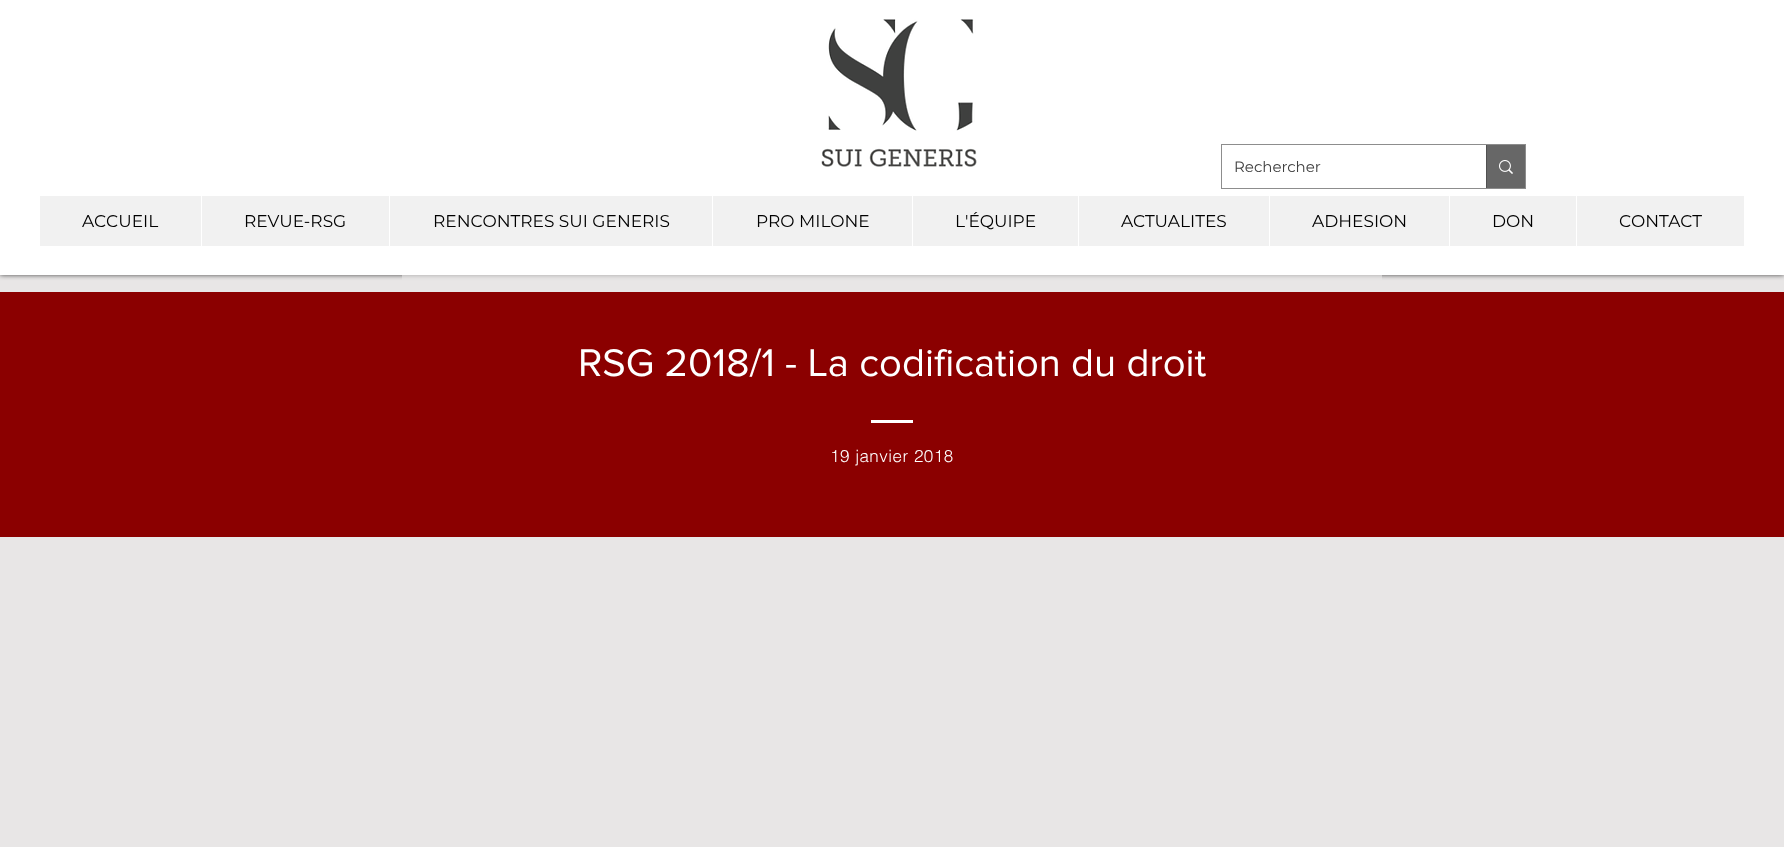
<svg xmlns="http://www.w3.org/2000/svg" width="1784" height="847">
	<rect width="100%" height="100%" fill="#E8E6E6" />
	<rect x="0" y="0" width="1784" height="275" fill="#000000" fill-opacity="0.7" filter="blur(2.5px)" />
	<rect x="0" y="0" width="1784" height="275" fill="#FFFFFF" />
	<image x="821" y="19" width="156" height="148" href="assets/img1.png" />
	<rect x="1221.5" y="144.5" width="304" height="44" fill="none" stroke="#8D8D8D" />
	<text x="1234" y="172" font-family="Montserrat" font-size="15" fill="#414141">Rechercher</text>
	<rect x="1487" y="145" width="38" height="43" fill="#676767" />
	<rect x="1486" y="145" width="1" height="43" fill="#505050" />
	<image x="1499" y="160" width="14" height="14" href="assets/img2.png" />
	<rect x="40" y="196" width="1704" height="50" fill="#F1F1F1" />
	<text x="82" y="227" font-family="Montserrat" font-size="17" fill="#000000">ACCUEIL</text>
	<rect x="201" y="196" width="1" height="50" fill="#FFFFFF" />
	<text x="244" y="227" font-family="Montserrat" font-size="17" fill="#000000">REVUE-RSG</text>
	<rect x="389" y="196" width="1" height="50" fill="#FFFFFF" />
	<text x="433" y="227" font-family="Montserrat" font-size="17" fill="#000000">RENCONTRES SUI GENERIS</text>
	<rect x="712" y="196" width="1" height="50" fill="#FFFFFF" />
	<text x="756" y="227" font-family="Montserrat" font-size="17" fill="#000000">PRO MILONE</text>
	<rect x="912" y="196" width="1" height="50" fill="#FFFFFF" />
	<text x="955" y="227" font-family="Montserrat" font-size="17" fill="#000000">L'ÉQUIPE</text>
	<rect x="1078" y="196" width="1" height="50" fill="#FFFFFF" />
	<text x="1121" y="227" font-family="Montserrat" font-size="17" fill="#000000">ACTUALITES</text>
	<rect x="1269" y="196" width="1" height="50" fill="#FFFFFF" />
	<text x="1312" y="227" font-family="Montserrat" font-size="17" fill="#000000">ADHESION</text>
	<rect x="1449" y="196" width="1" height="50" fill="#FFFFFF" />
	<text x="1492" y="227" font-family="Montserrat" font-size="17" fill="#000000">DON</text>
	<rect x="1576" y="196" width="1" height="50" fill="#FFFFFF" />
	<text x="1619" y="227" font-family="Montserrat" font-size="17" fill="#000000">CONTACT</text>
	<rect x="402" y="275" width="980" height="5" fill="#E8E6E6" fill-opacity="0.6" />
	<rect x="0" y="292" width="1784" height="245" fill="#8B0000" />
	<text x="578" y="376" font-family="'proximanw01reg'" font-size="40" fill="#FFFFFF">RSG 2018/1 - La codification du droit</text>
	<rect x="871" y="420" width="42" height="3" fill="#FFFFFF" />
	<text x="830" y="462" font-family="helvetica" font-size="17" font-weight="300" letter-spacing="0.5" fill="#FFFFFF">19 janvier 2018</text>
</svg>
